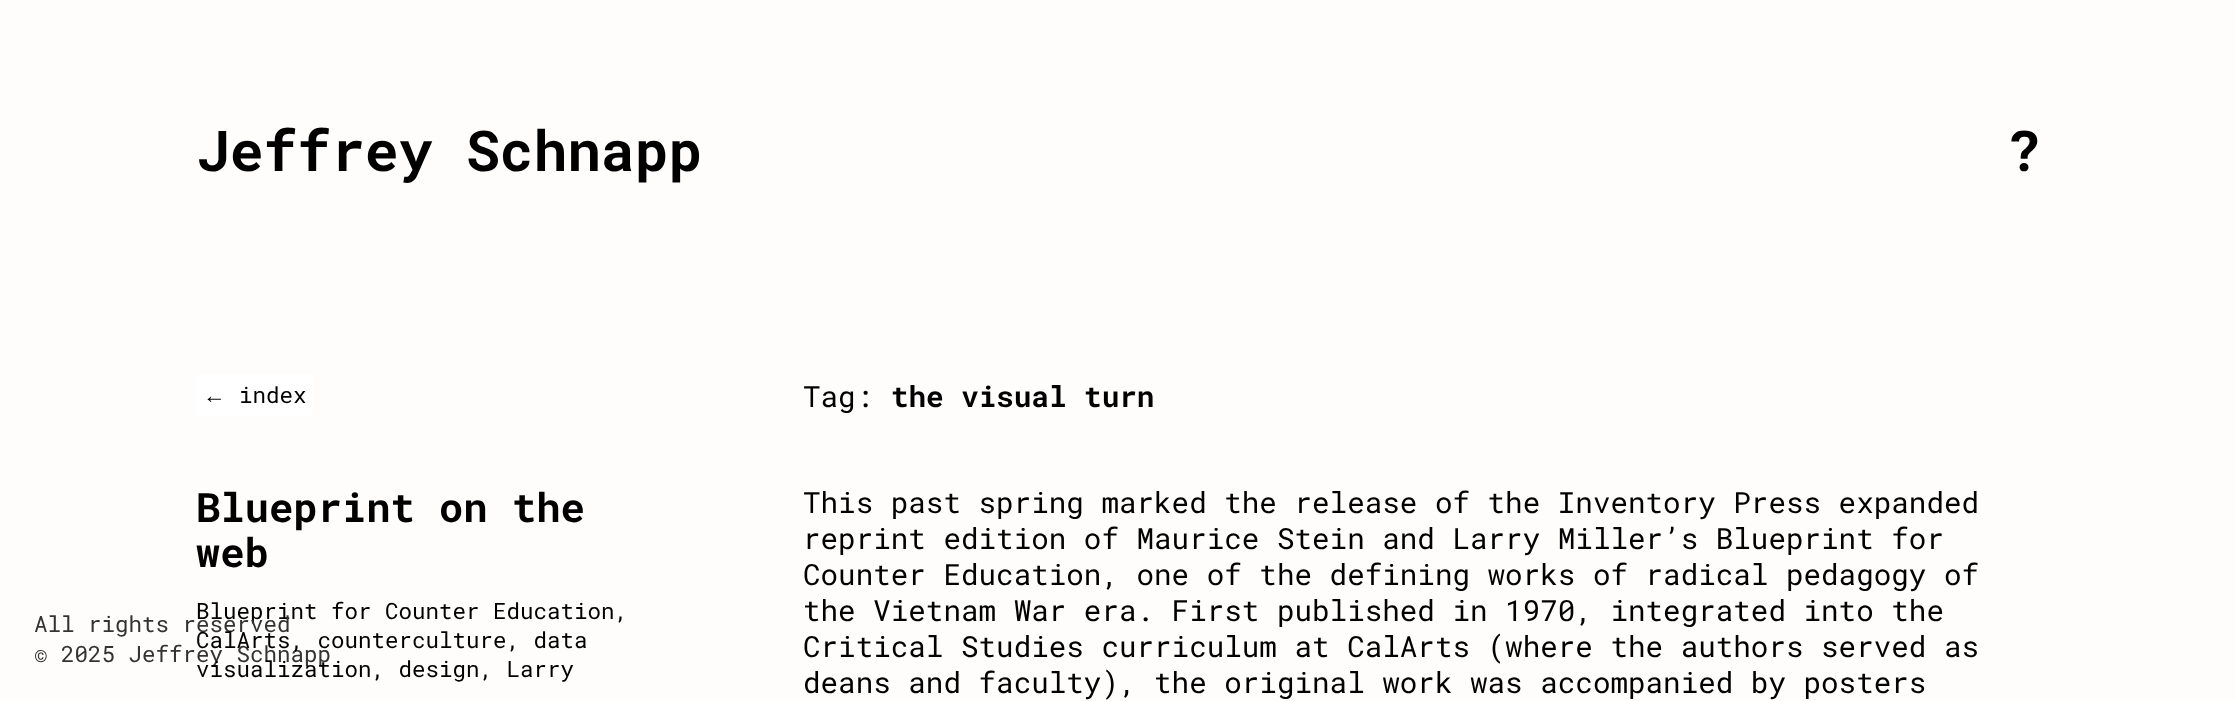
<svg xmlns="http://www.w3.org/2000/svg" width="2235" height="701">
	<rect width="100%" height="100%" fill="#FFFCFC" />
	<g font-family="Roboto Mono" font-size="56.25" font-weight="700" fill="#000000">
		<text x="196" y="171">Jeffrey Schnapp</text>
		<text x="2007" y="171">?</text>
	</g>
	<text x="196" y="619" font-family="Roboto Mono" font-size="22.5" fill="#000000">Blueprint for Counter Education,</text>
	<g font-family="Roboto Mono" font-size="22.5" fill="#333333">
		<text x="34" y="632">All rights reserved</text>
		<text x="34" y="662">© 2025 Jeffrey Schnapp</text>
	</g>
	<rect x="196" y="374" width="117" height="42" rx="5" fill="#FFFFFF" />
	<text x="203" y="403" font-family="Liberation Serif" font-size="22.5" fill="#000000">←</text>
	<text x="239" y="403" font-family="Roboto Mono" font-size="22.5" fill="#000000">index</text>
	<text x="803" y="407" font-family="Roboto Mono" font-size="29.25" fill="#000000">Tag:</text>
	<text x="891" y="407" font-family="Roboto Mono" font-size="29.25" font-weight="700" fill="#000000">the visual turn</text>
	<g font-family="Roboto Mono" font-size="40.5" font-weight="700" fill="#000000">
		<text x="196" y="522">Blueprint on the</text>
		<text x="196" y="567">web</text>
	</g>
	<g font-family="Roboto Mono" font-size="22.5" fill="#000000">
		<text x="196" y="648">CalArts, counterculture, data</text>
		<text x="196" y="677">visualization, design, Larry</text>
	</g>
	<g font-family="Roboto Mono" font-size="29.25" fill="#000000">
		<text x="803" y="513">This past spring marked the release of the Inventory Press expanded</text>
		<text x="803" y="549">reprint edition of Maurice Stein and Larry Miller’s Blueprint for</text>
		<text x="803" y="585">Counter Education, one of the defining works of radical pedagogy of</text>
		<text x="803" y="621">the Vietnam War era. First published in 1970, integrated into the</text>
		<text x="803" y="657">Critical Studies curriculum at CalArts (where the authors served as</text>
		<text x="803" y="693">deans and faculty), the original work was accompanied by posters</text>
	</g>
</svg>
